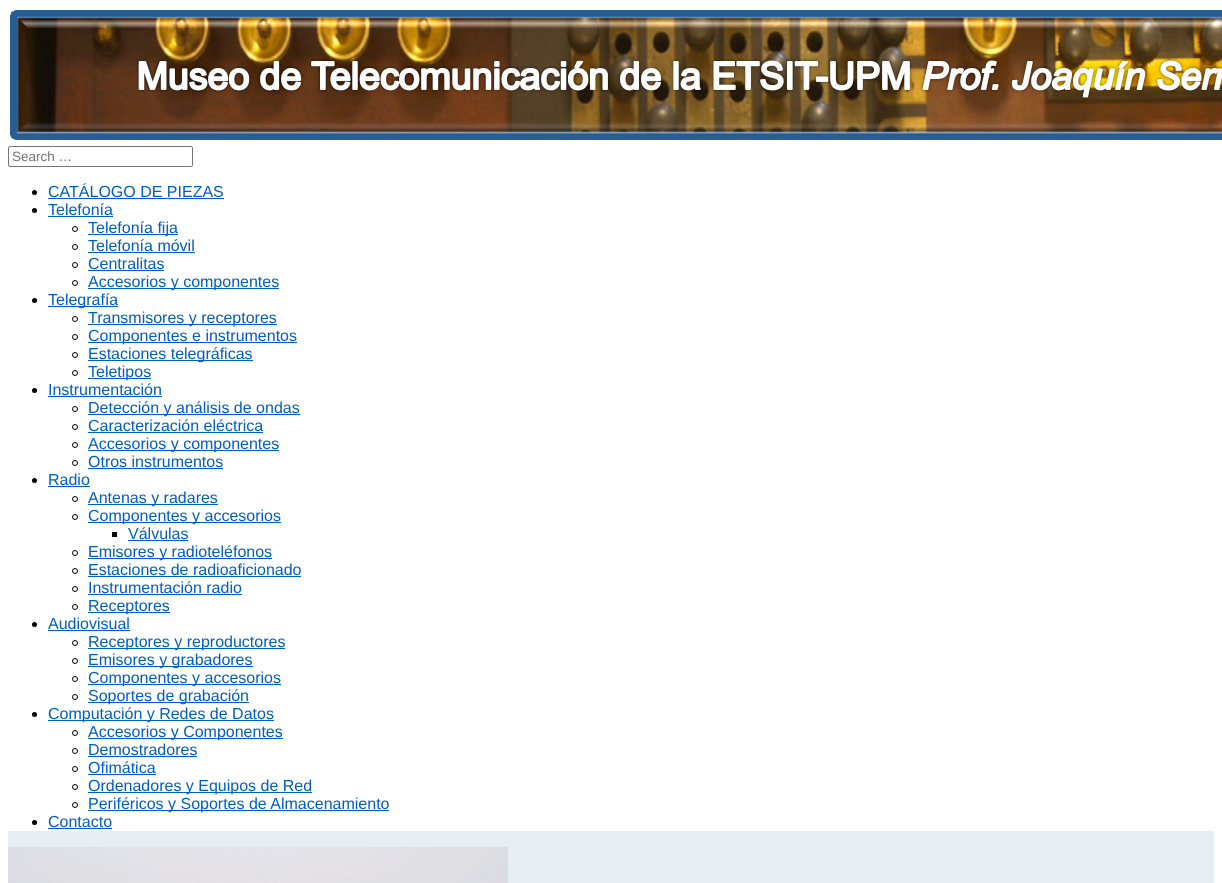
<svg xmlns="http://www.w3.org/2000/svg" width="1222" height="883">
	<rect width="100%" height="100%" fill="#FFFFFF" />
	<image x="10" y="10" width="1212" height="130" href="assets/img1.png" />
	<rect x="8.5" y="146.5" width="184" height="20" rx="1.5" fill="none" stroke="#767676" />
	<text x="12" y="161" font-family="Liberation Sans" font-size="13.5" fill="#757575">Search …</text>
	<rect x="8" y="831" width="1206" height="52" fill="#E6EEF4" />
	<circle cx="34.5" cy="192.5" r="2.5" fill="#000000" />
	<text x="48" y="197" font-family="Liberation Sans" font-size="16" fill="#005FBF">CATÁLOGO DE PIEZAS</text>
	<rect x="48" y="198" width="176" height="1" fill="#005FBF" />
	<circle cx="34.5" cy="210.5" r="2.5" fill="#000000" />
	<text x="48" y="215" font-family="Liberation Sans" font-size="16" fill="#005FBF">Telefonía</text>
	<rect x="48" y="216" width="65" height="1" fill="#005FBF" />
	<circle cx="75" cy="229" r="2.5" fill="none" stroke="#000000" />
	<rect x="88" y="234" width="90" height="1" fill="#005FBF" />
	<text x="88" y="233" font-family="Liberation Sans" font-size="16" fill="#005FBF">Telefonía fija</text>
	<circle cx="75" cy="247" r="2.5" fill="none" stroke="#000000" />
	<text x="88" y="251" font-family="Liberation Sans" font-size="16" fill="#005FBF">Telefonía móvil</text>
	<rect x="88" y="252" width="107" height="1" fill="#005FBF" />
	<circle cx="75" cy="265" r="2.5" fill="none" stroke="#000000" />
	<text x="88" y="269" font-family="Liberation Sans" font-size="16" fill="#005FBF">Centralitas</text>
	<rect x="88" y="270" width="76" height="1" fill="#005FBF" />
	<circle cx="75" cy="283" r="2.5" fill="none" stroke="#000000" />
	<rect x="88" y="288" width="191" height="1" fill="#005FBF" />
	<text x="88" y="287" font-family="Liberation Sans" font-size="16" fill="#005FBF">Accesorios y componentes</text>
	<circle cx="34.5" cy="300.5" r="2.5" fill="#000000" />
	<rect x="48" y="306" width="70" height="1" fill="#005FBF" />
	<text x="48" y="305" font-family="Liberation Sans" font-size="16" fill="#005FBF">Telegrafía</text>
	<circle cx="75" cy="319" r="2.5" fill="none" stroke="#000000" />
	<rect x="88" y="324" width="189" height="1" fill="#005FBF" />
	<text x="88" y="323" font-family="Liberation Sans" font-size="16" fill="#005FBF">Transmisores y receptores</text>
	<circle cx="75" cy="337" r="2.5" fill="none" stroke="#000000" />
	<rect x="88" y="342" width="209" height="1" fill="#005FBF" />
	<text x="88" y="341" font-family="Liberation Sans" font-size="16" fill="#005FBF">Componentes e instrumentos</text>
	<circle cx="75" cy="355" r="2.5" fill="none" stroke="#000000" />
	<rect x="88" y="360" width="165" height="1" fill="#005FBF" />
	<text x="88" y="359" font-family="Liberation Sans" font-size="16" fill="#005FBF">Estaciones telegráficas</text>
	<circle cx="75" cy="373" r="2.5" fill="none" stroke="#000000" />
	<rect x="88" y="378" width="63" height="1" fill="#005FBF" />
	<text x="88" y="377" font-family="Liberation Sans" font-size="16" fill="#005FBF">Teletipos</text>
	<circle cx="34.5" cy="390.5" r="2.5" fill="#000000" />
	<text x="48" y="395" font-family="Liberation Sans" font-size="16" fill="#005FBF">Instrumentación</text>
	<rect x="48" y="396" width="114" height="1" fill="#005FBF" />
	<circle cx="75" cy="409" r="2.5" fill="none" stroke="#000000" />
	<rect x="88" y="414" width="212" height="1" fill="#005FBF" />
	<text x="88" y="413" font-family="Liberation Sans" font-size="16" fill="#005FBF">Detección y análisis de ondas</text>
	<circle cx="75" cy="427" r="2.5" fill="none" stroke="#000000" />
	<text x="88" y="431" font-family="Liberation Sans" font-size="16" fill="#005FBF">Caracterización eléctrica</text>
	<rect x="88" y="432" width="175" height="1" fill="#005FBF" />
	<circle cx="75" cy="445" r="2.5" fill="none" stroke="#000000" />
	<rect x="88" y="450" width="191" height="1" fill="#005FBF" />
	<text x="88" y="449" font-family="Liberation Sans" font-size="16" fill="#005FBF">Accesorios y componentes</text>
	<circle cx="75" cy="463" r="2.5" fill="none" stroke="#000000" />
	<text x="88" y="467" font-family="Liberation Sans" font-size="16" fill="#005FBF">Otros instrumentos</text>
	<rect x="88" y="468" width="135" height="1" fill="#005FBF" />
	<circle cx="34.5" cy="480.5" r="2.5" fill="#000000" />
	<text x="48" y="485" font-family="Liberation Sans" font-size="16" fill="#005FBF">Radio</text>
	<rect x="48" y="486" width="42" height="1" fill="#005FBF" />
	<circle cx="75" cy="499" r="2.5" fill="none" stroke="#000000" />
	<rect x="88" y="504" width="130" height="1" fill="#005FBF" />
	<text x="88" y="503" font-family="Liberation Sans" font-size="16" fill="#005FBF">Antenas y radares</text>
	<circle cx="75" cy="517" r="2.5" fill="none" stroke="#000000" />
	<rect x="88" y="522" width="193" height="1" fill="#005FBF" />
	<text x="88" y="521" font-family="Liberation Sans" font-size="16" fill="#005FBF">Componentes y accesorios</text>
	<rect x="112" y="532" width="5" height="5" fill="#000000" />
	<text x="128" y="539" font-family="Liberation Sans" font-size="16" fill="#005FBF">Válvulas</text>
	<rect x="128" y="540" width="60" height="1" fill="#005FBF" />
	<circle cx="75" cy="553" r="2.5" fill="none" stroke="#000000" />
	<rect x="88" y="558" width="184" height="1" fill="#005FBF" />
	<text x="88" y="557" font-family="Liberation Sans" font-size="16" fill="#005FBF">Emisores y radioteléfonos</text>
	<circle cx="75" cy="571" r="2.5" fill="none" stroke="#000000" />
	<text x="88" y="575" font-family="Liberation Sans" font-size="16" fill="#005FBF">Estaciones de radioaficionado</text>
	<rect x="88" y="576" width="213" height="1" fill="#005FBF" />
	<circle cx="75" cy="589" r="2.5" fill="none" stroke="#000000" />
	<text x="88" y="593" font-family="Liberation Sans" font-size="16" fill="#005FBF">Instrumentación radio</text>
	<rect x="88" y="594" width="154" height="1" fill="#005FBF" />
	<circle cx="75" cy="607" r="2.5" fill="none" stroke="#000000" />
	<rect x="88" y="612" width="82" height="1" fill="#005FBF" />
	<text x="88" y="611" font-family="Liberation Sans" font-size="16" fill="#005FBF">Receptores</text>
	<circle cx="34.5" cy="624.5" r="2.5" fill="#000000" />
	<text x="48" y="629" font-family="Liberation Sans" font-size="16" fill="#005FBF">Audiovisual</text>
	<rect x="48" y="630" width="82" height="1" fill="#005FBF" />
	<circle cx="75" cy="643" r="2.5" fill="none" stroke="#000000" />
	<rect x="88" y="648" width="197" height="1" fill="#005FBF" />
	<text x="88" y="647" font-family="Liberation Sans" font-size="16" fill="#005FBF">Receptores y reproductores</text>
	<circle cx="75" cy="661" r="2.5" fill="none" stroke="#000000" />
	<rect x="88" y="666" width="165" height="1" fill="#005FBF" />
	<text x="88" y="665" font-family="Liberation Sans" font-size="16" fill="#005FBF">Emisores y grabadores</text>
	<circle cx="75" cy="679" r="2.5" fill="none" stroke="#000000" />
	<rect x="88" y="684" width="193" height="1" fill="#005FBF" />
	<text x="88" y="683" font-family="Liberation Sans" font-size="16" fill="#005FBF">Componentes y accesorios</text>
	<circle cx="75" cy="697" r="2.5" fill="none" stroke="#000000" />
	<rect x="88" y="702" width="161" height="1" fill="#005FBF" />
	<text x="88" y="701" font-family="Liberation Sans" font-size="16" fill="#005FBF">Soportes de grabación</text>
	<circle cx="34.5" cy="714.5" r="2.5" fill="#000000" />
	<rect x="48" y="720" width="226" height="1" fill="#005FBF" />
	<text x="48" y="719" font-family="Liberation Sans" font-size="16" fill="#005FBF">Computación y Redes de Datos</text>
	<circle cx="75" cy="733" r="2.5" fill="none" stroke="#000000" />
	<rect x="88" y="738" width="195" height="1" fill="#005FBF" />
	<text x="88" y="737" font-family="Liberation Sans" font-size="16" fill="#005FBF">Accesorios y Componentes</text>
	<circle cx="75" cy="751" r="2.5" fill="none" stroke="#000000" />
	<text x="88" y="755" font-family="Liberation Sans" font-size="16" fill="#005FBF">Demostradores</text>
	<rect x="88" y="756" width="109" height="1" fill="#005FBF" />
	<circle cx="75" cy="769" r="2.5" fill="none" stroke="#000000" />
	<text x="88" y="773" font-family="Liberation Sans" font-size="16" fill="#005FBF">Ofimática</text>
	<rect x="88" y="774" width="68" height="1" fill="#005FBF" />
	<circle cx="75" cy="787" r="2.5" fill="none" stroke="#000000" />
	<rect x="88" y="792" width="224" height="1" fill="#005FBF" />
	<text x="88" y="791" font-family="Liberation Sans" font-size="16" fill="#005FBF">Ordenadores y Equipos de Red</text>
	<circle cx="75" cy="805" r="2.5" fill="none" stroke="#000000" />
	<rect x="88" y="810" width="301" height="1" fill="#005FBF" />
	<text x="88" y="809" font-family="Liberation Sans" font-size="16" fill="#005FBF">Periféricos y Soportes de Almacenamiento</text>
	<circle cx="34.5" cy="822.5" r="2.5" fill="#000000" />
	<text x="48" y="827" font-family="Liberation Sans" font-size="16" fill="#005FBF">Contacto</text>
	<rect x="48" y="828" width="64" height="1" fill="#005FBF" />
	<image x="8" y="847" width="500" height="36" href="assets/img2.png" />
</svg>
